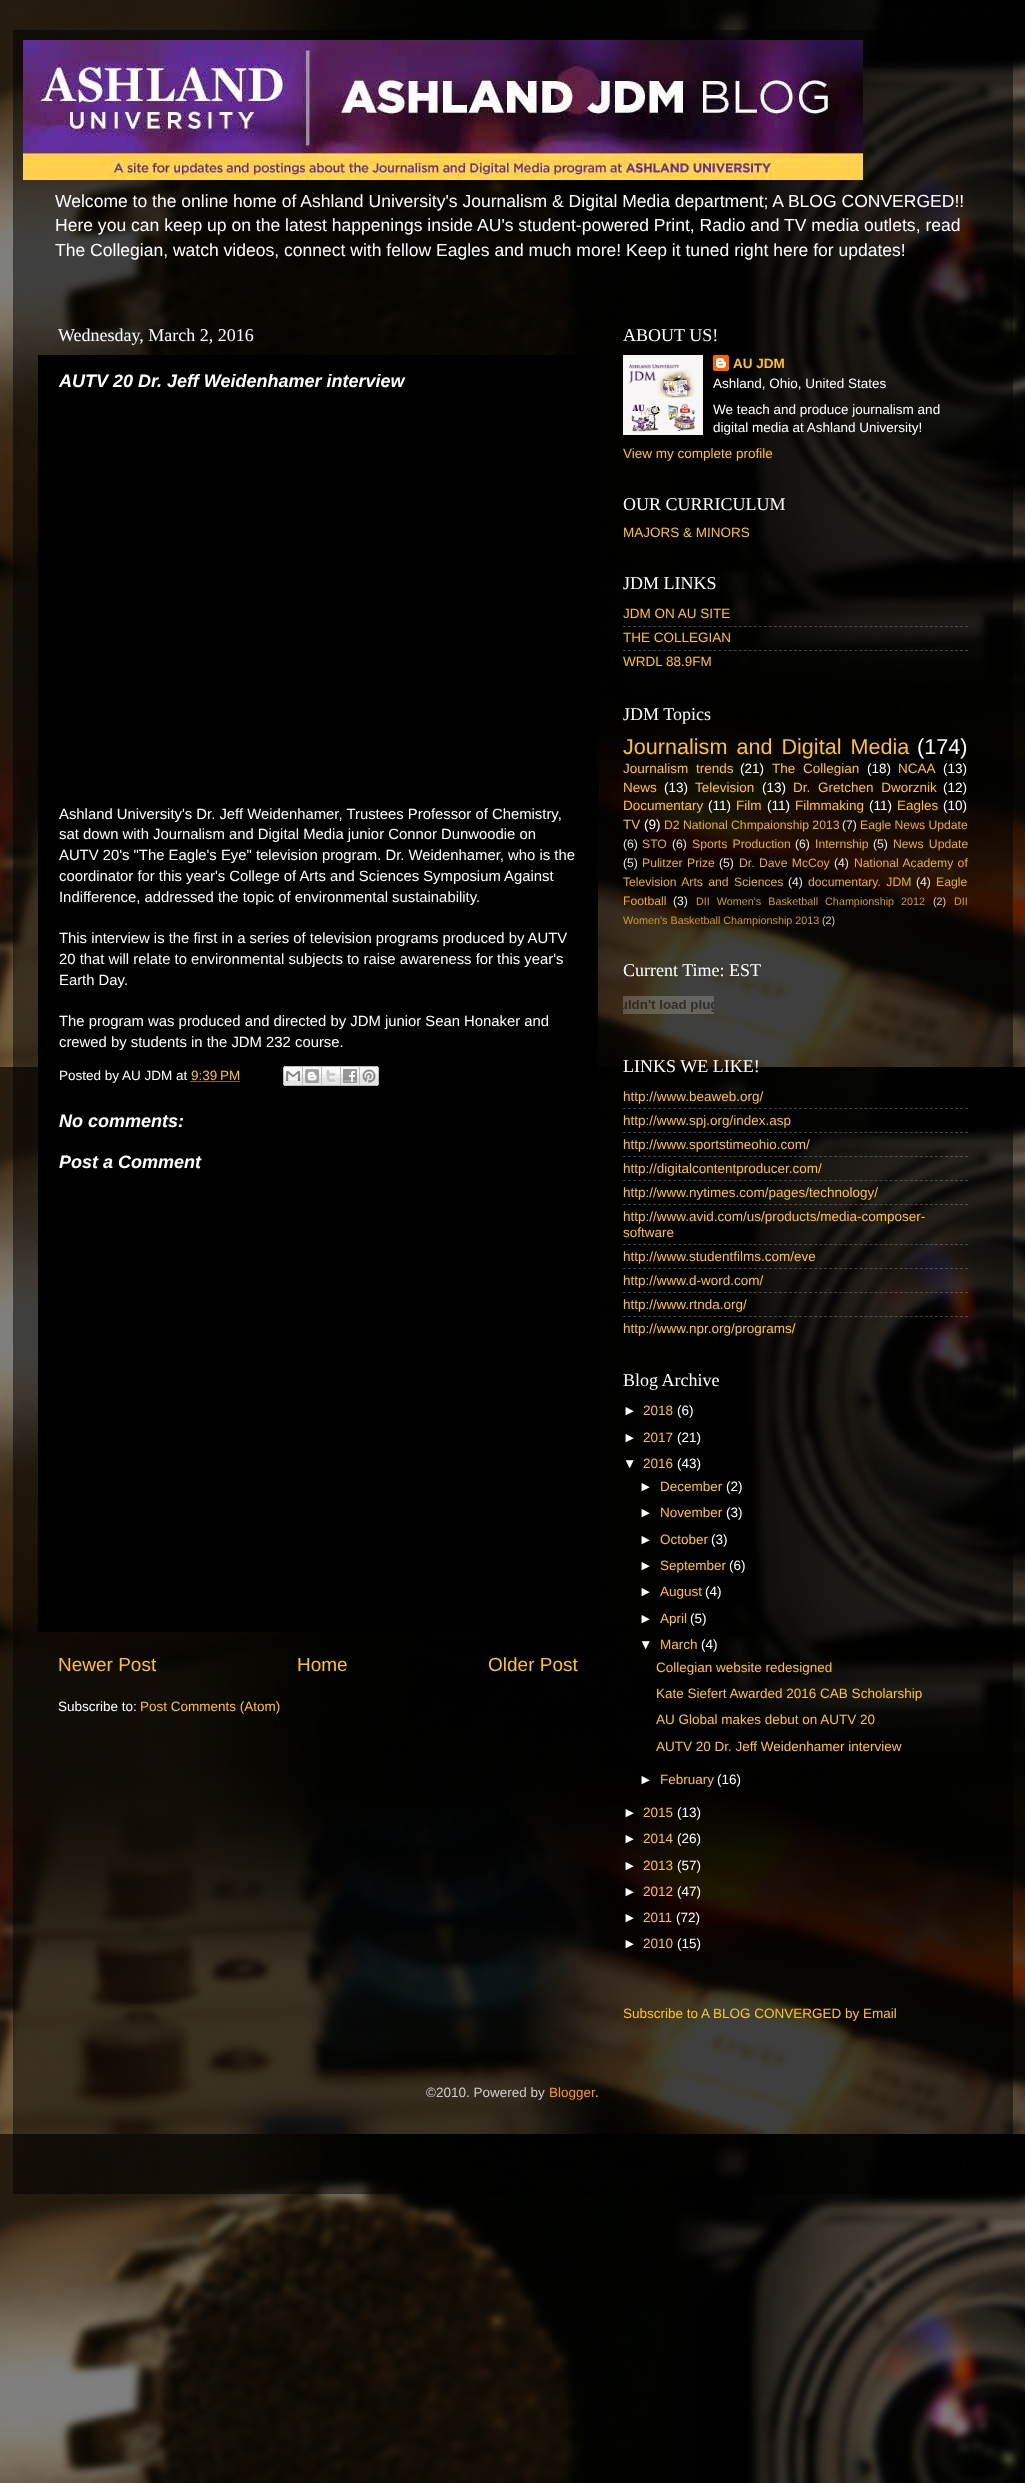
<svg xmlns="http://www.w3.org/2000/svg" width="1025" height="2483">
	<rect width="100%" height="100%" fill="#FFFFFF" />
	<image x="0" y="0" width="1025" height="2483" href="assets/img1.png" />
	<rect x="13" y="30" width="1000" height="2164" fill="#000000" fill-opacity="0.5" />
	<image x="23" y="40" width="840" height="140" href="assets/img2.png" />
	<g font-family="Liberation Sans" font-size="17.55" fill="#FFFFFF">
		<text x="55" y="207">Welcome to the online home of Ashland University's Journalism &amp; Digital Media department; A BLOG CONVERGED!!</text>
		<text x="55" y="231">Here you can keep up on the latest happenings inside AU's student-powered Print, Radio and TV media outlets, read</text>
		<text x="55" y="256">The Collegian, watch videos, connect with fellow Eagles and much more! Keep it tuned right here for updates!</text>
	</g>
	<text x="58" y="341" font-family="Liberation Serif" font-size="18" fill="#FFFFFF">Wednesday, March 2, 2016</text>
	<rect x="38" y="355" width="560" height="1277" fill="#000000" />
	<text x="59" y="387" font-family="Liberation Sans" font-size="18" font-weight="700" font-style="italic" fill="#FFFFFF">AUTV 20 Dr. Jeff Weidenhamer interview</text>
	<g font-family="Liberation Sans" font-size="14.85" fill="#FFFFFF">
		<text x="59" y="819">Ashland University's Dr. Jeff Weidenhamer, Trustees Professor of Chemistry,</text>
		<text x="59" y="839">sat down with Journalism and Digital Media junior Connor Dunwoodie on</text>
		<text x="59" y="860">AUTV 20's "The Eagle's Eye" television program. Dr. Weidenhamer, who is the</text>
		<text x="59" y="881">coordinator for this year's College of Arts and Sciences Symposium Against</text>
		<text x="59" y="902">Indifference, addressed the topic of environmental sustainability.</text>
		<text x="59" y="943">This interview is the first in a series of television programs produced by AUTV</text>
		<text x="59" y="964">20 that will relate to environmental subjects to raise awareness for this year's</text>
		<text x="59" y="985">Earth Day.</text>
		<text x="59" y="1026">The program was produced and directed by JDM junior Sean Honaker and</text>
		<text x="59" y="1047">crewed by students in the JDM 232 course.</text>
	</g>
	<g font-family="Liberation Sans" font-size="13.5" fill="#FFFFFF">
		<text x="59" y="1080">Posted by</text>
		<text x="122" y="1080">AU JDM at</text>
	</g>
	<text x="191" y="1080" font-family="Liberation Sans" font-size="13.5" fill="#FFC324">9:39 PM</text>
	<path d="M190.5 1081.5H240" fill="none" stroke="#FFC324" stroke-dasharray="1 1" />
	<image x="283" y="1066" width="20" height="20" href="assets/img3.png" />
	<image x="303" y="1066" width="19" height="20" href="assets/img4.png" />
	<image x="322" y="1066" width="19" height="20" href="assets/img5.png" />
	<image x="341" y="1066" width="19" height="20" href="assets/img6.png" />
	<image x="360" y="1066" width="19" height="20" href="assets/img7.png" />
	<g font-family="Liberation Sans" font-size="18" font-weight="700" font-style="italic" fill="#FFFFFF">
		<text x="59" y="1127">No comments:</text>
		<text x="59" y="1168">Post a Comment</text>
	</g>
	<g font-family="Liberation Sans" font-size="19" fill="#FFC324">
		<text x="58" y="1671">Newer Post</text>
		<text x="297" y="1671">Home</text>
		<text x="488" y="1671">Older Post</text>
	</g>
	<text x="58" y="1711" font-family="Liberation Sans" font-size="13.5" fill="#FFFFFF">Subscribe to:</text>
	<text x="140" y="1711" font-family="Liberation Sans" font-size="13.5" fill="#FFC324">Post Comments (Atom)</text>
	<text x="623" y="341" font-family="Liberation Serif" font-size="18" fill="#FFFFFF">ABOUT US!</text>
	<image x="623" y="355" width="80" height="80" href="assets/img8.png" />
	<image x="713" y="355" width="16" height="16" href="assets/img9.png" />
	<text x="733" y="368" font-family="Liberation Sans" font-size="13.5" font-weight="700" fill="#FFC324">AU JDM</text>
	<g font-family="Liberation Sans" font-size="13.5" fill="#FFFFFF">
		<text x="713" y="388">Ashland, Ohio, United States</text>
		<text x="713" y="414">We teach and produce journalism and</text>
		<text x="713" y="432">digital media at Ashland University!</text>
	</g>
	<text x="623" y="458" font-family="Liberation Sans" font-size="13.5" fill="#FFC324">View my complete profile</text>
	<text x="623" y="510" font-family="Liberation Serif" font-size="18" fill="#FFFFFF">OUR CURRICULUM</text>
	<text x="623" y="537" font-family="Liberation Sans" font-size="13.5" fill="#FFC324">MAJORS &amp; MINORS</text>
	<text x="623" y="589" font-family="Liberation Serif" font-size="18" fill="#FFFFFF">JDM LINKS</text>
	<text x="623" y="618" font-family="Liberation Sans" font-size="13.5" fill="#FFC324">JDM ON AU SITE</text>
	<path d="M623 626.5H968" fill="none" stroke="#808080" stroke-opacity="0.5" stroke-dasharray="3 2.03" />
	<text x="623" y="642" font-family="Liberation Sans" font-size="13.5" fill="#FFC324">THE COLLEGIAN</text>
	<path d="M623 650.5H968" fill="none" stroke="#808080" stroke-opacity="0.5" stroke-dasharray="3 2.03" />
	<text x="623" y="666" font-family="Liberation Sans" font-size="13.5" fill="#FFC324">WRDL 88.9FM</text>
	<text x="623" y="720" font-family="Liberation Serif" font-size="18" fill="#FFFFFF">JDM Topics</text>
	<text x="623" y="754" word-spacing="3" font-family="Liberation Sans" font-size="21.6" fill="#FFC324">Journalism and Digital Media</text>
	<text x="917" y="754" font-family="Liberation Sans" font-size="21.6" fill="#FFFFFF">(174)</text>
	<text x="623" y="773" word-spacing="4" font-family="Liberation Sans" font-size="13.5" fill="#FFC324">Journalism trends</text>
	<text x="740" y="773" font-family="Liberation Sans" font-size="13.5" fill="#FFFFFF">(21)</text>
	<text x="772" y="773" word-spacing="4" font-family="Liberation Sans" font-size="13.5" fill="#FFC324">The Collegian</text>
	<text x="867" y="773" font-family="Liberation Sans" font-size="13.5" fill="#FFFFFF">(18)</text>
	<text x="898" y="773" font-family="Liberation Sans" font-size="13.5" fill="#FFC324">NCAA</text>
	<text x="943" y="773" font-family="Liberation Sans" font-size="13.5" fill="#FFFFFF">(13)</text>
	<text x="623" y="792" font-family="Liberation Sans" font-size="13.5" fill="#FFC324">News</text>
	<text x="664" y="792" font-family="Liberation Sans" font-size="13.5" fill="#FFFFFF">(13)</text>
	<text x="695" y="792" font-family="Liberation Sans" font-size="13.5" fill="#FFC324">Television</text>
	<text x="762" y="792" font-family="Liberation Sans" font-size="13.5" fill="#FFFFFF">(13)</text>
	<text x="793" y="792" word-spacing="4" font-family="Liberation Sans" font-size="13.5" fill="#FFC324">Dr. Gretchen Dworznik</text>
	<text x="943" y="792" font-family="Liberation Sans" font-size="13.5" fill="#FFFFFF">(12)</text>
	<text x="623" y="810" font-family="Liberation Sans" font-size="13.5" fill="#FFC324">Documentary</text>
	<text x="708" y="810" font-family="Liberation Sans" font-size="13.5" fill="#FFFFFF">(11)</text>
	<text x="736" y="810" font-family="Liberation Sans" font-size="13.5" fill="#FFC324">Film</text>
	<text x="767" y="810" font-family="Liberation Sans" font-size="13.5" fill="#FFFFFF">(11)</text>
	<text x="795" y="810" font-family="Liberation Sans" font-size="13.5" fill="#FFC324">Filmmaking</text>
	<text x="869" y="810" font-family="Liberation Sans" font-size="13.5" fill="#FFFFFF">(11)</text>
	<text x="897" y="810" font-family="Liberation Sans" font-size="13.5" fill="#FFC324">Eagles</text>
	<text x="943" y="810" font-family="Liberation Sans" font-size="13.5" fill="#FFFFFF">(10)</text>
	<text x="623" y="829" font-family="Liberation Sans" font-size="13.5" fill="#FFC324">TV</text>
	<text x="644" y="829" font-family="Liberation Sans" font-size="13.5" fill="#FFFFFF">(9)</text>
	<text x="664" y="829" font-family="Liberation Sans" font-size="12.2" fill="#E8B121">D2 National Chmpaionship 2013</text>
	<text x="842" y="829" font-family="Liberation Sans" font-size="12.2" fill="#E8E7E6">(7)</text>
	<text x="860" y="829" font-family="Liberation Sans" font-size="12.2" fill="#E8B121">Eagle News Update</text>
	<text x="623" y="848" font-family="Liberation Sans" font-size="12.2" fill="#E8E7E6">(6)</text>
	<text x="642" y="848" font-family="Liberation Sans" font-size="12.2" fill="#E8B121">STO</text>
	<text x="672" y="848" font-family="Liberation Sans" font-size="12.2" fill="#E8E7E6">(6)</text>
	<text x="692" y="848" word-spacing="2" font-family="Liberation Sans" font-size="12.2" fill="#E8B121">Sports Production</text>
	<text x="795" y="848" font-family="Liberation Sans" font-size="12.2" fill="#E8E7E6">(6)</text>
	<text x="815" y="848" font-family="Liberation Sans" font-size="12.2" fill="#E8B121">Internship</text>
	<text x="873" y="848" font-family="Liberation Sans" font-size="12.2" fill="#E8E7E6">(5)</text>
	<text x="893" y="848" word-spacing="2" font-family="Liberation Sans" font-size="12.2" fill="#E8B121">News Update</text>
	<text x="623" y="867" font-family="Liberation Sans" font-size="12.2" fill="#E8E7E6">(5)</text>
	<text x="642" y="867" word-spacing="1" font-family="Liberation Sans" font-size="12.2" fill="#E8B121">Pulitzer Prize</text>
	<text x="719" y="867" font-family="Liberation Sans" font-size="12.2" fill="#E8E7E6">(5)</text>
	<text x="739" y="867" word-spacing="1" font-family="Liberation Sans" font-size="12.2" fill="#E8B121">Dr. Dave McCoy</text>
	<text x="834" y="867" font-family="Liberation Sans" font-size="12.2" fill="#E8E7E6">(4)</text>
	<g font-family="Liberation Sans" font-size="12.2" fill="#E8B121">
		<text x="854" y="867" word-spacing="1">National Academy of</text>
		<text x="623" y="886" word-spacing="2">Television Arts and Sciences</text>
	</g>
	<text x="788" y="886" font-family="Liberation Sans" font-size="12.2" fill="#E8E7E6">(4)</text>
	<text x="808" y="886" word-spacing="2" font-family="Liberation Sans" font-size="12.2" fill="#E8B121">documentary. JDM</text>
	<text x="916" y="886" font-family="Liberation Sans" font-size="12.2" fill="#E8E7E6">(4)</text>
	<g font-family="Liberation Sans" font-size="12.2" fill="#E8B121">
		<text x="936" y="886">Eagle</text>
		<text x="623" y="905">Football</text>
	</g>
	<text x="673" y="905" font-family="Liberation Sans" font-size="12.2" fill="#E8E7E6">(3)</text>
	<text x="696" y="905" word-spacing="4" font-family="Liberation Sans" font-size="10.8" fill="#CE9D1D">DII Women's Basketball Championship 2012</text>
	<text x="933" y="905" font-family="Liberation Sans" font-size="10.8" fill="#D3CECC">(2)</text>
	<text x="954" y="905" font-family="Liberation Sans" font-size="10.8" fill="#D59F1D">DII</text>
	<text x="623" y="924" font-family="Liberation Sans" font-size="10.8" fill="#CE9D1D">Women's Basketball Championship 2013</text>
	<text x="822" y="924" font-family="Liberation Sans" font-size="10.8" fill="#CDCDCD">(2)</text>
	<text x="623" y="976" font-family="Liberation Serif" font-size="18" fill="#FFFFFF">Current Time: EST</text>
	<image x="623" y="996" width="91" height="18" href="assets/img10.png" />
	<text x="623" y="1072" font-family="Liberation Serif" font-size="18" fill="#FFFFFF">LINKS WE LIKE!</text>
	<text x="623" y="1101" font-family="Liberation Sans" font-size="13.5" fill="#FFC324">http://www.beaweb.org/</text>
	<path d="M623 1108.5H968" fill="none" stroke="#808080" stroke-opacity="0.5" stroke-dasharray="3 2.03" />
	<text x="623" y="1125" font-family="Liberation Sans" font-size="13.5" fill="#FFC324">http://www.spj.org/index.asp</text>
	<path d="M623 1132.5H968" fill="none" stroke="#808080" stroke-opacity="0.5" stroke-dasharray="3 2.03" />
	<text x="623" y="1149" font-family="Liberation Sans" font-size="13.5" fill="#FFC324">http://www.sportstimeohio.com/</text>
	<path d="M623 1156.5H968" fill="none" stroke="#808080" stroke-opacity="0.5" stroke-dasharray="3 2.03" />
	<text x="623" y="1173" font-family="Liberation Sans" font-size="13.5" fill="#FFC324">http://digitalcontentproducer.com/</text>
	<path d="M623 1180.5H968" fill="none" stroke="#808080" stroke-opacity="0.5" stroke-dasharray="3 2.03" />
	<text x="623" y="1197" font-family="Liberation Sans" font-size="13.5" fill="#FFC324">http://www.nytimes.com/pages/technology/</text>
	<path d="M623 1204.5H968" fill="none" stroke="#808080" stroke-opacity="0.5" stroke-dasharray="3 2.03" />
	<g font-family="Liberation Sans" font-size="13.5" fill="#FFC324">
		<text x="623" y="1221">http://www.avid.com/us/products/media-composer-</text>
		<text x="623" y="1237">software</text>
	</g>
	<path d="M623 1244.5H968" fill="none" stroke="#808080" stroke-opacity="0.5" stroke-dasharray="3 2.03" />
	<text x="623" y="1261" font-family="Liberation Sans" font-size="13.5" fill="#FFC324">http://www.studentfilms.com/eve</text>
	<path d="M623 1268.5H968" fill="none" stroke="#808080" stroke-opacity="0.5" stroke-dasharray="3 2.03" />
	<text x="623" y="1285" font-family="Liberation Sans" font-size="13.5" fill="#FFC324">http://www.d-word.com/</text>
	<path d="M623 1292.5H968" fill="none" stroke="#808080" stroke-opacity="0.5" stroke-dasharray="3 2.03" />
	<text x="623" y="1309" font-family="Liberation Sans" font-size="13.5" fill="#FFC324">http://www.rtnda.org/</text>
	<path d="M623 1316.5H968" fill="none" stroke="#808080" stroke-opacity="0.5" stroke-dasharray="3 2.03" />
	<text x="623" y="1333" font-family="Liberation Sans" font-size="13.5" fill="#FFC324">http://www.npr.org/programs/</text>
	<text x="623" y="1386" font-family="Liberation Serif" font-size="18" fill="#FFFFFF">Blog Archive</text>
	<text x="623" y="1415" font-family="Liberation Sans" font-size="13.5" fill="#FFFFFF">►</text>
	<text x="643" y="1415" font-family="Liberation Sans" font-size="13.5" fill="#FFC324">2018</text>
	<g font-family="Liberation Sans" font-size="13.5" fill="#FFFFFF">
		<text x="677" y="1415">(6)</text>
		<text x="623" y="1442">►</text>
	</g>
	<text x="643" y="1442" font-family="Liberation Sans" font-size="13.5" fill="#FFC324">2017</text>
	<g font-family="Liberation Sans" font-size="13.5" fill="#FFFFFF">
		<text x="677" y="1442">(21)</text>
		<text x="623" y="1468">▼</text>
	</g>
	<text x="643" y="1468" font-family="Liberation Sans" font-size="13.5" fill="#FFC324">2016</text>
	<g font-family="Liberation Sans" font-size="13.5" fill="#FFFFFF">
		<text x="677" y="1468">(43)</text>
		<text x="639" y="1491">►</text>
	</g>
	<text x="660" y="1491" font-family="Liberation Sans" font-size="13.5" fill="#FFC324">December</text>
	<g font-family="Liberation Sans" font-size="13.5" fill="#FFFFFF">
		<text x="726" y="1491">(2)</text>
		<text x="639" y="1517">►</text>
	</g>
	<text x="660" y="1517" font-family="Liberation Sans" font-size="13.5" fill="#FFC324">November</text>
	<g font-family="Liberation Sans" font-size="13.5" fill="#FFFFFF">
		<text x="726" y="1517">(3)</text>
		<text x="639" y="1544">►</text>
	</g>
	<text x="660" y="1544" font-family="Liberation Sans" font-size="13.5" fill="#FFC324">October</text>
	<g font-family="Liberation Sans" font-size="13.5" fill="#FFFFFF">
		<text x="711" y="1544">(3)</text>
		<text x="639" y="1570">►</text>
	</g>
	<text x="660" y="1570" font-family="Liberation Sans" font-size="13.5" fill="#FFC324">September</text>
	<g font-family="Liberation Sans" font-size="13.5" fill="#FFFFFF">
		<text x="729" y="1570">(6)</text>
		<text x="639" y="1596">►</text>
	</g>
	<text x="660" y="1596" font-family="Liberation Sans" font-size="13.5" fill="#FFC324">August</text>
	<g font-family="Liberation Sans" font-size="13.5" fill="#FFFFFF">
		<text x="705" y="1596">(4)</text>
		<text x="639" y="1623">►</text>
	</g>
	<text x="660" y="1623" font-family="Liberation Sans" font-size="13.5" fill="#FFC324">April</text>
	<g font-family="Liberation Sans" font-size="13.5" fill="#FFFFFF">
		<text x="690" y="1623">(5)</text>
		<text x="639" y="1649">▼</text>
	</g>
	<text x="660" y="1649" font-family="Liberation Sans" font-size="13.5" fill="#FFC324">March</text>
	<text x="701" y="1649" font-family="Liberation Sans" font-size="13.5" fill="#FFFFFF">(4)</text>
	<g font-family="Liberation Sans" font-size="13.5" fill="#FFC324">
		<text x="656" y="1672">Collegian website redesigned</text>
		<text x="656" y="1698">Kate Siefert Awarded 2016 CAB Scholarship</text>
		<text x="656" y="1724">AU Global makes debut on AUTV 20</text>
		<text x="656" y="1751">AUTV 20 Dr. Jeff Weidenhamer interview</text>
	</g>
	<text x="639" y="1784" font-family="Liberation Sans" font-size="13.5" fill="#FFFFFF">►</text>
	<text x="660" y="1784" font-family="Liberation Sans" font-size="13.5" fill="#FFC324">February</text>
	<g font-family="Liberation Sans" font-size="13.5" fill="#FFFFFF">
		<text x="717" y="1784">(16)</text>
		<text x="623" y="1817">►</text>
	</g>
	<text x="643" y="1817" font-family="Liberation Sans" font-size="13.5" fill="#FFC324">2015</text>
	<g font-family="Liberation Sans" font-size="13.5" fill="#FFFFFF">
		<text x="677" y="1817">(13)</text>
		<text x="623" y="1843">►</text>
	</g>
	<text x="643" y="1843" font-family="Liberation Sans" font-size="13.5" fill="#FFC324">2014</text>
	<g font-family="Liberation Sans" font-size="13.5" fill="#FFFFFF">
		<text x="677" y="1843">(26)</text>
		<text x="623" y="1870">►</text>
	</g>
	<text x="643" y="1870" font-family="Liberation Sans" font-size="13.5" fill="#FFC324">2013</text>
	<g font-family="Liberation Sans" font-size="13.5" fill="#FFFFFF">
		<text x="677" y="1870">(57)</text>
		<text x="623" y="1896">►</text>
	</g>
	<text x="643" y="1896" font-family="Liberation Sans" font-size="13.5" fill="#FFC324">2012</text>
	<g font-family="Liberation Sans" font-size="13.5" fill="#FFFFFF">
		<text x="677" y="1896">(47)</text>
		<text x="623" y="1922">►</text>
	</g>
	<text x="643" y="1922" font-family="Liberation Sans" font-size="13.5" fill="#FFC324">2011</text>
	<g font-family="Liberation Sans" font-size="13.5" fill="#FFFFFF">
		<text x="676" y="1922">(72)</text>
		<text x="623" y="1948">►</text>
	</g>
	<text x="643" y="1948" font-family="Liberation Sans" font-size="13.5" fill="#FFC324">2010</text>
	<text x="677" y="1948" font-family="Liberation Sans" font-size="13.5" fill="#FFFFFF">(15)</text>
	<text x="623" y="2018" font-family="Liberation Sans" font-size="13.5" fill="#FFC324">Subscribe to A BLOG CONVERGED by Email</text>
	<text x="426" y="2097" font-family="Liberation Sans" font-size="13.5" fill="#CDCDCD">©2010. Powered by</text>
	<text x="549" y="2097" font-family="Liberation Sans" font-size="13.5" fill="#FF9900">Blogger</text>
	<text x="595" y="2097" font-family="Liberation Sans" font-size="13.5" fill="#CDCDCD">.</text>
</svg>
